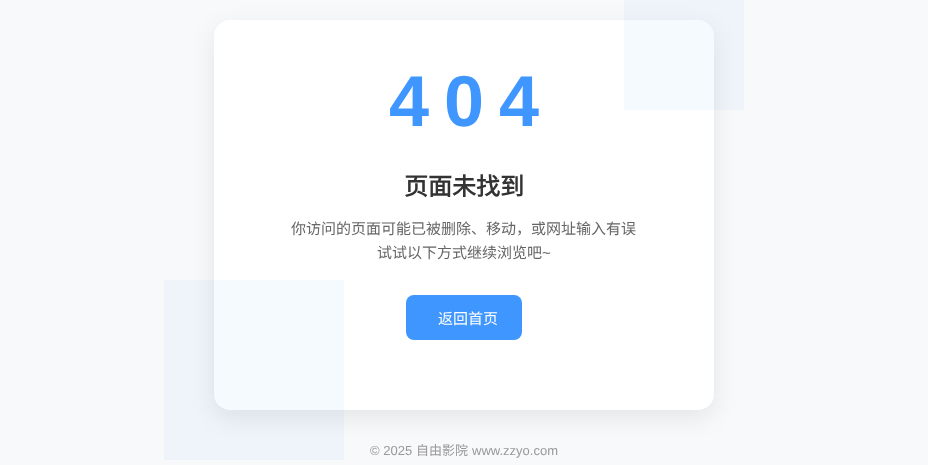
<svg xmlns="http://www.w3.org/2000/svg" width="928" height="465">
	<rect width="100%" height="100%" fill="#F8F9FA" />
	<rect x="214" y="28" width="500" height="390" rx="16" fill="#000000" fill-opacity="0.08" filter="blur(12px)" />
	<rect x="214" y="20" width="500" height="390" rx="16" fill="#FFFFFF" />
	<g font-family="Liberation Sans" font-size="72" font-weight="700" fill="#4096FF">
		<text x="389" y="126">4</text>
		<text x="444" y="126">0</text>
		<text x="499" y="126">4</text>
	</g>
	<rect x="624" y="0" width="120" height="110" fill="#4096FF" fill-opacity="0.05" />
	<text x="404" y="195" font-family="Noto Sans CJK SC" font-size="24" font-weight="700" fill="#333333">页面未找到</text>
	<g font-family="Noto Sans CJK SC" font-size="15" fill="#666666">
		<text x="291" y="234">你访问的页面可能已被删除、移动，或网址输入有误</text>
		<text x="377" y="258">试试以下方式继续浏览吧</text>
	</g>
	<text x="542" y="258" font-family="Liberation Sans" font-size="15" fill="#666666">~</text>
	<rect x="164" y="280" width="180" height="180" fill="#4096FF" fill-opacity="0.05" />
	<rect x="406" y="295" width="116" height="45" rx="8" fill="#4096FF" />
	<text x="438" y="324" font-family="Noto Sans CJK SC" font-size="15" fill="#FFFFFF">返回首页</text>
	<text x="370" y="455" font-family="Liberation Sans" font-size="13" fill="#999999">© 2025</text>
	<text x="416" y="455" font-family="Noto Sans CJK SC" font-size="13" fill="#999999">自由影院</text>
	<text x="472" y="455" font-family="Liberation Sans" font-size="13" fill="#999999">www.zzyo.com</text>
</svg>
